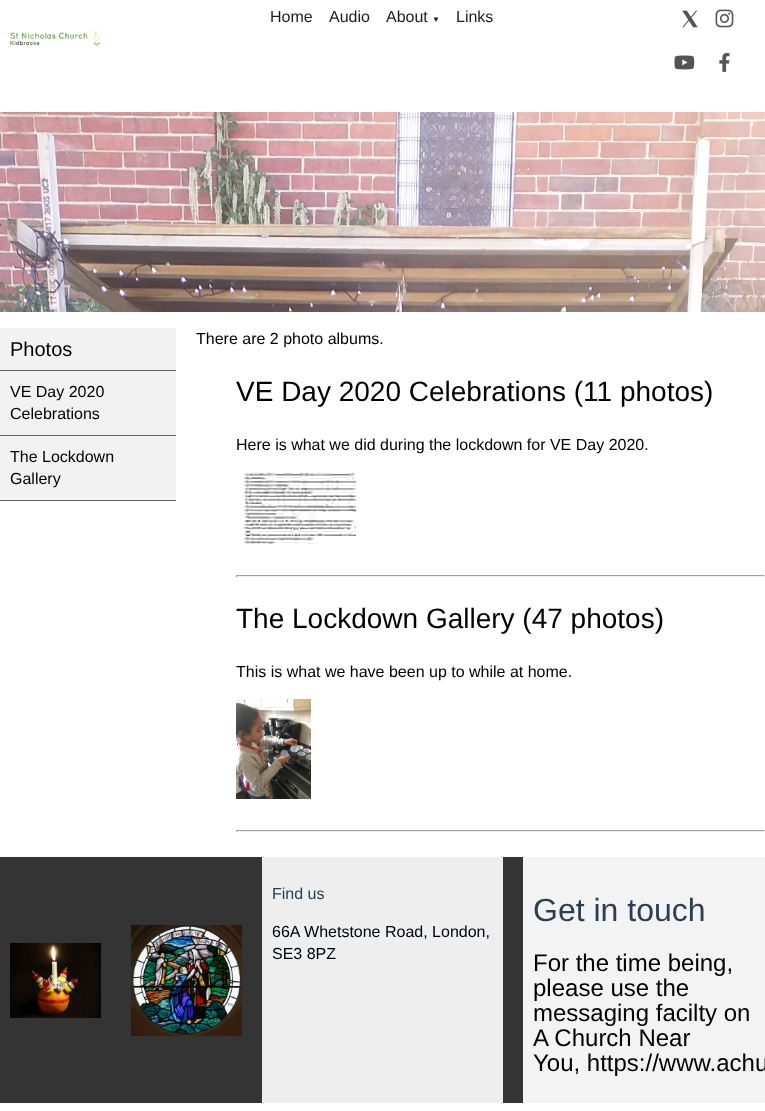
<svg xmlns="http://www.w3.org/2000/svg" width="765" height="1111">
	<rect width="100%" height="100%" fill="#FFFFFF" />
	<g font-family="Liberation Sans" font-size="16" fill="#1C1C1C">
		<text x="270" y="22">Home</text>
		<text x="329" y="22">Audio</text>
		<text x="386" y="22">About</text>
	</g>
	<text x="432" y="22" font-family="Liberation Serif" font-size="8" fill="#1C1C1C">▼</text>
	<text x="456" y="22" font-family="Liberation Sans" font-size="16" fill="#1C1C1C">Links</text>
	<image x="682" y="10" width="16" height="18" href="assets/img1.png" />
	<image x="715" y="9" width="19" height="19" href="assets/img2.png" />
	<image x="674" y="55" width="21" height="15" href="assets/img3.png" />
	<image x="719" y="53" width="11" height="19" href="assets/img4.png" />
	<image x="10" y="30" width="91" height="16" href="assets/img5.png" />
	<image x="0" y="112" width="765" height="200" href="assets/img6.png" />
	<rect x="0" y="328" width="176" height="172" fill="#F2F2F2" />
	<rect x="0" y="370" width="176" height="1" fill="#626262" />
	<text x="10" y="356" font-family="Liberation Sans" font-size="20" fill="#000000">Photos</text>
	<rect x="0" y="435" width="176" height="1" fill="#626262" />
	<g font-family="Liberation Sans" font-size="16" fill="#000000">
		<text x="10" y="397">VE Day 2020</text>
		<text x="10" y="419">Celebrations</text>
	</g>
	<rect x="0" y="500" width="176" height="1" fill="#626262" />
	<g font-family="Liberation Sans" font-size="16" fill="#000000">
		<text x="10" y="462">The Lockdown</text>
		<text x="10" y="484">Gallery</text>
		<text x="196" y="344">There are 2 photo albums.</text>
	</g>
	<text x="236" y="401" font-family="Liberation Sans" font-size="28" fill="#000000">VE Day 2020 Celebrations (11 photos)</text>
	<text x="236" y="450" font-family="Liberation Sans" font-size="16" fill="#000000">Here is what we did during the lockdown for VE Day 2020.</text>
	<image x="244" y="472" width="112" height="72" href="assets/img7.png" />
	<rect x="236" y="575" width="529" height="1" fill="#9F9F9F" />
	<rect x="764" y="575" width="1" height="2" fill="#EEEEEE" />
	<rect x="236" y="576" width="529" height="1" fill="#EEEEEE" />
	<rect x="236" y="575" width="1" height="2" fill="#9F9F9F" />
	<text x="236" y="628" font-family="Liberation Sans" font-size="28" fill="#000000">The Lockdown Gallery (47 photos)</text>
	<text x="236" y="677" font-family="Liberation Sans" font-size="16" fill="#000000">This is what we have been up to while at home.</text>
	<image x="236" y="699" width="75" height="100" href="assets/img8.png" />
	<rect x="236" y="830" width="529" height="1" fill="#9F9F9F" />
	<rect x="764" y="830" width="1" height="2" fill="#EEEEEE" />
	<rect x="236" y="831" width="529" height="1" fill="#EEEEEE" />
	<rect x="236" y="830" width="1" height="2" fill="#9F9F9F" />
	<rect x="0" y="857" width="523" height="246" fill="#343434" />
	<image x="10" y="943" width="91" height="75" href="assets/img9.png" />
	<image x="131" y="925" width="111" height="111" href="assets/img10.png" />
	<rect x="262" y="857" width="241" height="246" fill="#EEEEEE" />
	<rect x="272" y="885" width="52" height="17" fill="#ECF0F1" />
	<text x="272" y="899" font-family="Liberation Sans" font-size="16" fill="#2C3E50">Find us</text>
	<rect x="272" y="923" width="218" height="17" fill="#ECF0F1" />
	<text x="272" y="937" font-family="Liberation Sans" font-size="16" fill="#000000">66A Whetstone Road, London,</text>
	<rect x="272" y="945" width="64" height="17" fill="#ECF0F1" />
	<text x="272" y="959" font-family="Liberation Sans" font-size="16" fill="#000000">SE3 8PZ</text>
	<rect x="523" y="857" width="242" height="246" fill="#F3F3F3" />
	<text x="533" y="921" font-family="Liberation Sans" font-size="32" fill="#2C3E50">Get in touch</text>
	<g font-family="Liberation Sans" font-size="24" fill="#000000">
		<text x="533" y="971">For the time being,</text>
		<text x="533" y="996">please use the</text>
		<text x="533" y="1021">messaging facilty on</text>
		<text x="533" y="1046">A Church Near</text>
		<text x="533" y="1071">You, https://www.achu</text>
	</g>
</svg>
